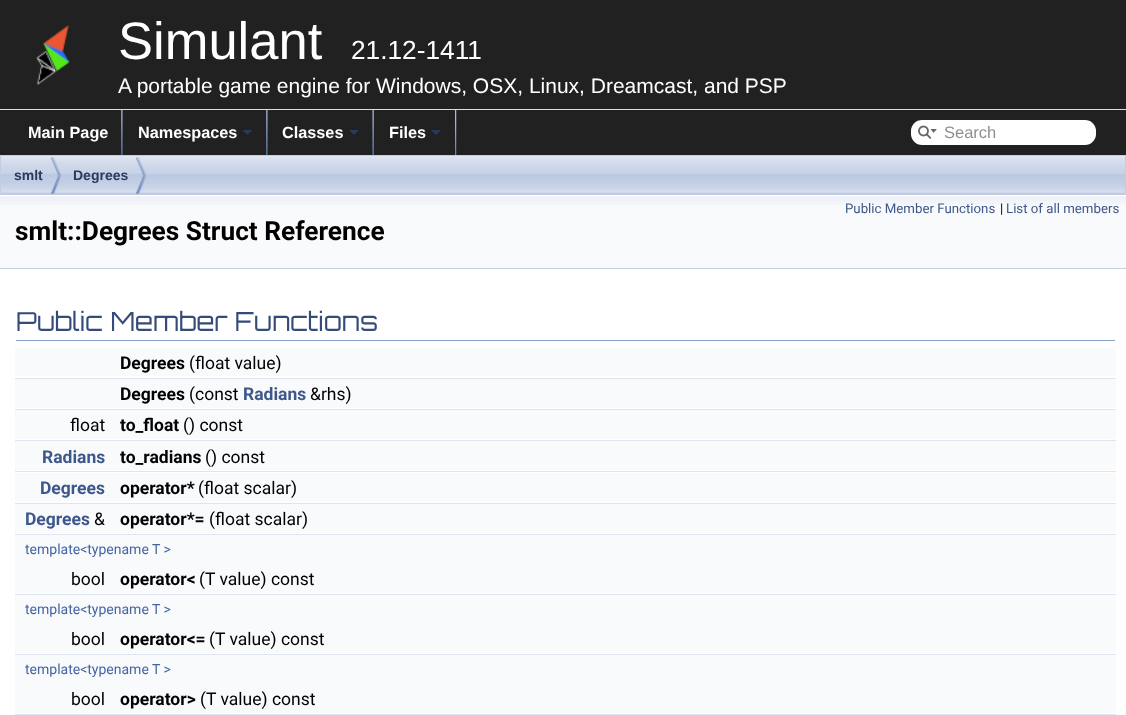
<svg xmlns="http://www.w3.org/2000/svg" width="1126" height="715">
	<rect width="100%" height="100%" fill="#FFFFFF" />
	<rect x="0" y="0" width="1126" height="109" fill="#212121" />
	<rect x="0" y="109" width="1126" height="1" fill="#DDDDDD" />
	<image x="36" y="25" width="34" height="61" href="assets/img1.png" />
	<text x="118" y="59" font-family="Liberation Sans" font-size="52.5" fill="#FFFFFF">Simulant</text>
	<text x="351" y="59" font-family="Liberation Sans" font-size="26.25" fill="#FFFFFF">21.12-1411</text>
	<text x="118" y="93" font-family="Liberation Sans" font-size="21" fill="#FFFFFF">A portable game engine for Windows, OSX, Linux, Dreamcast, and PSP</text>
	<rect x="0" y="110" width="1126" height="45" fill="#212121" />
	<image x="121" y="110" width="2" height="45" href="assets/img2.png" />
	<text x="28" y="138" font-family="Liberation Sans" font-size="16.25" font-weight="700" fill="#FFFFFF">Main Page</text>
	<image x="266" y="110" width="2" height="45" href="assets/img2.png" />
	<text x="138" y="138" font-family="Liberation Sans" font-size="16.25" font-weight="700" fill="#FFFFFF">Namespaces</text>
	<path d="M242.5 130H252.5L247.5 135Z" fill="#283A5D" />
	<image x="372" y="110" width="2" height="45" href="assets/img3.png" />
	<text x="282" y="138" font-family="Liberation Sans" font-size="16.25" font-weight="700" fill="#FFFFFF">Classes</text>
	<path d="M349 130H359L354 135Z" fill="#283A5D" />
	<image x="455" y="110" width="2" height="45" href="assets/img4.png" />
	<text x="389" y="138" font-family="Liberation Sans" font-size="16.25" font-weight="700" fill="#FFFFFF">Files</text>
	<path d="M431 130H441L436 135Z" fill="#283A5D" />
	<rect x="911" y="120" width="185" height="25" rx="11" fill="#FFFFFF" />
	<image x="918" y="125" width="19" height="14" href="assets/img5.png" />
	<text x="944" y="138" font-family="Liberation Sans" font-size="16.5" fill="#909090">Search</text>
	<image x="1" y="156" width="1124" height="38" href="assets/img6.png" />
	<rect x="0.5" y="155.5" width="1125" height="39" fill="none" stroke="#C2CDE4" />
	<image x="51" y="157" width="11" height="37" href="assets/img7.png" />
	<text x="14" y="180" font-family="Liberation Sans" font-size="14" font-weight="700" fill="#283A5D">smlt</text>
	<image x="136" y="157" width="11" height="37" href="assets/img7.png" />
	<text x="73" y="180" font-family="Liberation Sans" font-size="14" font-weight="700" fill="#283A5D">Degrees</text>
	<rect x="0" y="205" width="1126" height="63" fill="#F9FAFC" />
	<image x="0" y="195" width="1126" height="10" href="assets/img8.png" />
	<rect x="0" y="268" width="1126" height="1" fill="#C4CFE5" />
	<text x="845" y="213" font-family="Roboto" font-size="13.25" fill="#3D578C">Public Member Functions</text>
	<text x="1000" y="213" font-family="Roboto" font-size="13.25" fill="#000000">|</text>
	<text x="1006" y="213" font-family="Roboto" font-size="13.25" fill="#3D578C">List of all members</text>
	<text x="15" y="240" font-family="Roboto" font-size="26.25" font-weight="700" fill="#000000">smlt::Degrees Struct Reference</text>
	<rect x="16" y="340" width="1099" height="1" fill="#879ECB" />
	<text x="16" y="331" font-family="Orbitron" font-size="26.25" fill="#354C7B">Public Member Functions</text>
	<rect x="15" y="348" width="1101" height="28" fill="#F9FAFC" />
	<text x="120" y="369" font-family="Roboto" font-size="17.5" font-weight="700" fill="#000000">Degrees</text>
	<text x="189" y="369" font-family="Roboto" font-size="17.5" fill="#000000">(float value)</text>
	<rect x="15" y="378" width="1101" height="1" fill="#DEE4F0" />
	<rect x="15" y="379" width="1101" height="29" fill="#F9FAFC" />
	<text x="120" y="400" font-family="Roboto" font-size="17.5" font-weight="700" fill="#000000">Degrees</text>
	<text x="189" y="400" font-family="Roboto" font-size="17.5" fill="#000000">(const</text>
	<text x="243" y="400" font-family="Roboto" font-size="17.5" font-weight="700" fill="#3D578C">Radians</text>
	<text x="310" y="400" font-family="Roboto" font-size="17.5" fill="#000000">&amp;rhs)</text>
	<rect x="15" y="409" width="1101" height="1" fill="#DEE4F0" />
	<rect x="15" y="410" width="1101" height="29" fill="#F9FAFC" />
	<text x="70" y="431" font-family="Roboto" font-size="17.5" fill="#000000">float</text>
	<text x="120" y="431" font-family="Roboto" font-size="17.5" font-weight="700" fill="#000000">to_float</text>
	<text x="183" y="431" font-family="Roboto" font-size="17.5" fill="#000000">() const</text>
	<rect x="15" y="440" width="1101" height="1" fill="#DEE4F0" />
	<rect x="15" y="441" width="1101" height="29" fill="#F9FAFC" />
	<text x="42" y="463" font-family="Roboto" font-size="17.5" font-weight="700" fill="#3D578C">Radians</text>
	<text x="120" y="463" font-family="Roboto" font-size="17.5" font-weight="700" fill="#000000">to_radians</text>
	<text x="205" y="463" font-family="Roboto" font-size="17.5" fill="#000000">() const</text>
	<rect x="15" y="471" width="1101" height="1" fill="#DEE4F0" />
	<rect x="15" y="473" width="1101" height="28" fill="#F9FAFC" />
	<text x="40" y="494" font-family="Roboto" font-size="17.5" font-weight="700" fill="#3D578C">Degrees</text>
	<text x="120" y="494" font-family="Roboto" font-size="17.5" font-weight="700" fill="#000000">operator*</text>
	<text x="198" y="494" font-family="Roboto" font-size="17.5" fill="#000000">(float scalar)</text>
	<rect x="15" y="503" width="1101" height="1" fill="#DEE4F0" />
	<rect x="15" y="504" width="1101" height="29" fill="#F9FAFC" />
	<text x="25" y="525" font-family="Roboto" font-size="17.5" font-weight="700" fill="#3D578C">Degrees</text>
	<text x="94" y="525" font-family="Roboto" font-size="17.5" fill="#000000">&amp;</text>
	<text x="120" y="525" font-family="Roboto" font-size="17.5" font-weight="700" fill="#000000">operator*=</text>
	<text x="209" y="525" font-family="Roboto" font-size="17.5" fill="#000000">(float scalar)</text>
	<rect x="15" y="534" width="1101" height="1" fill="#DEE4F0" />
	<rect x="15" y="535" width="1101" height="29" fill="#F9FAFC" />
	<text x="25" y="554" font-family="Roboto" font-size="14" fill="#4665A2">template&lt;typename T &gt;</text>
	<rect x="15" y="564" width="1101" height="29" fill="#F9FAFC" />
	<text x="71" y="585" font-family="Roboto" font-size="17.5" fill="#000000">bool</text>
	<text x="120" y="585" font-family="Roboto" font-size="17.5" font-weight="700" fill="#000000">operator&lt;</text>
	<text x="199" y="585" font-family="Roboto" font-size="17.5" fill="#000000">(T value) const</text>
	<rect x="15" y="594" width="1101" height="1" fill="#DEE4F0" />
	<rect x="15" y="595" width="1101" height="29" fill="#F9FAFC" />
	<text x="25" y="614" font-family="Roboto" font-size="14" fill="#4665A2">template&lt;typename T &gt;</text>
	<rect x="15" y="624" width="1101" height="29" fill="#F9FAFC" />
	<text x="71" y="645" font-family="Roboto" font-size="17.5" fill="#000000">bool</text>
	<text x="120" y="645" font-family="Roboto" font-size="17.5" font-weight="700" fill="#000000">operator&lt;=</text>
	<text x="209" y="645" font-family="Roboto" font-size="17.5" fill="#000000">(T value) const</text>
	<rect x="15" y="654" width="1101" height="1" fill="#DEE4F0" />
	<rect x="15" y="655" width="1101" height="29" fill="#F9FAFC" />
	<text x="25" y="674" font-family="Roboto" font-size="14" fill="#4665A2">template&lt;typename T &gt;</text>
	<rect x="15" y="684" width="1101" height="29" fill="#F9FAFC" />
	<text x="71" y="705" font-family="Roboto" font-size="17.5" fill="#000000">bool</text>
	<text x="120" y="705" font-family="Roboto" font-size="17.5" font-weight="700" fill="#000000">operator&gt;</text>
	<text x="200" y="705" font-family="Roboto" font-size="17.5" fill="#000000">(T value) const</text>
	<rect x="15" y="714" width="1101" height="1" fill="#DEE4F0" />
</svg>
